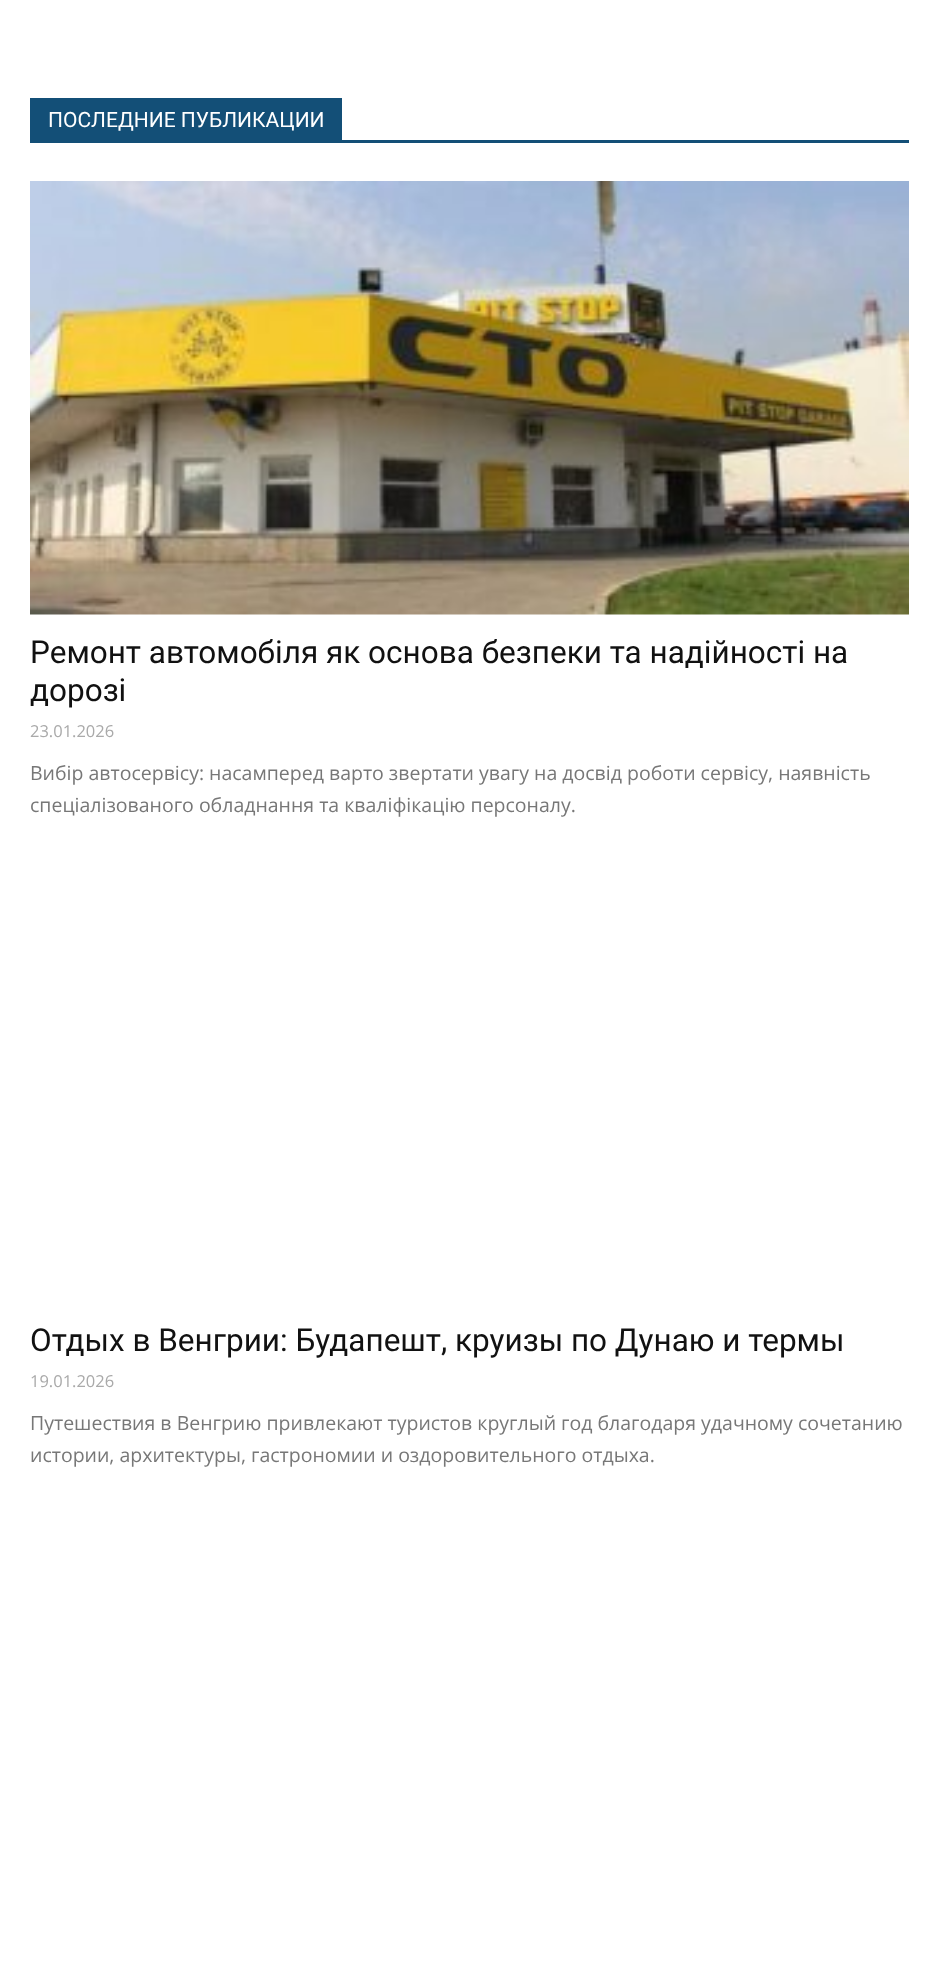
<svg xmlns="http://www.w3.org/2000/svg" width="938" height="1976">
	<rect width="100%" height="100%" fill="#FFFFFF" />
	<rect x="30" y="140" width="879" height="3" fill="#134F77" />
	<rect x="30" y="98" width="312" height="42" fill="#134F77" />
	<text x="48" y="127" font-family="Roboto" font-size="21" fill="#FFFFFF">ПОСЛЕДНИЕ ПУБЛИКАЦИИ</text>
	<image x="30" y="181" width="879" height="434" href="assets/img1.png" />
	<g font-family="Roboto" font-size="31.5" fill="#111111">
		<text x="30" y="663">Ремонт автомобіля як основа безпеки та надійності на</text>
		<text x="30" y="701">дорозі</text>
	</g>
	<text x="30" y="737" font-family="Open Sans" font-size="16.5" fill="#AAAAAA">23.01.2026</text>
	<g font-family="Open Sans" font-size="19.5" fill="#777777">
		<text x="30" y="780">Вибір автосервісу: насамперед варто звертати увагу на досвід роботи сервісу, наявність</text>
		<text x="30" y="812">спеціалізованого обладнання та кваліфікацію персоналу.</text>
	</g>
	<text x="30" y="1351" font-family="Roboto" font-size="31.5" fill="#111111">Отдых в Венгрии: Будапешт, круизы по Дунаю и термы</text>
	<text x="30" y="1387" font-family="Open Sans" font-size="16.5" fill="#AAAAAA">19.01.2026</text>
	<g font-family="Open Sans" font-size="19.5" fill="#777777">
		<text x="30" y="1430">Путешествия в Венгрию привлекают туристов круглый год благодаря удачному сочетанию</text>
		<text x="30" y="1462">истории, архитектуры, гастрономии и оздоровительного отдыха.</text>
	</g>
</svg>
